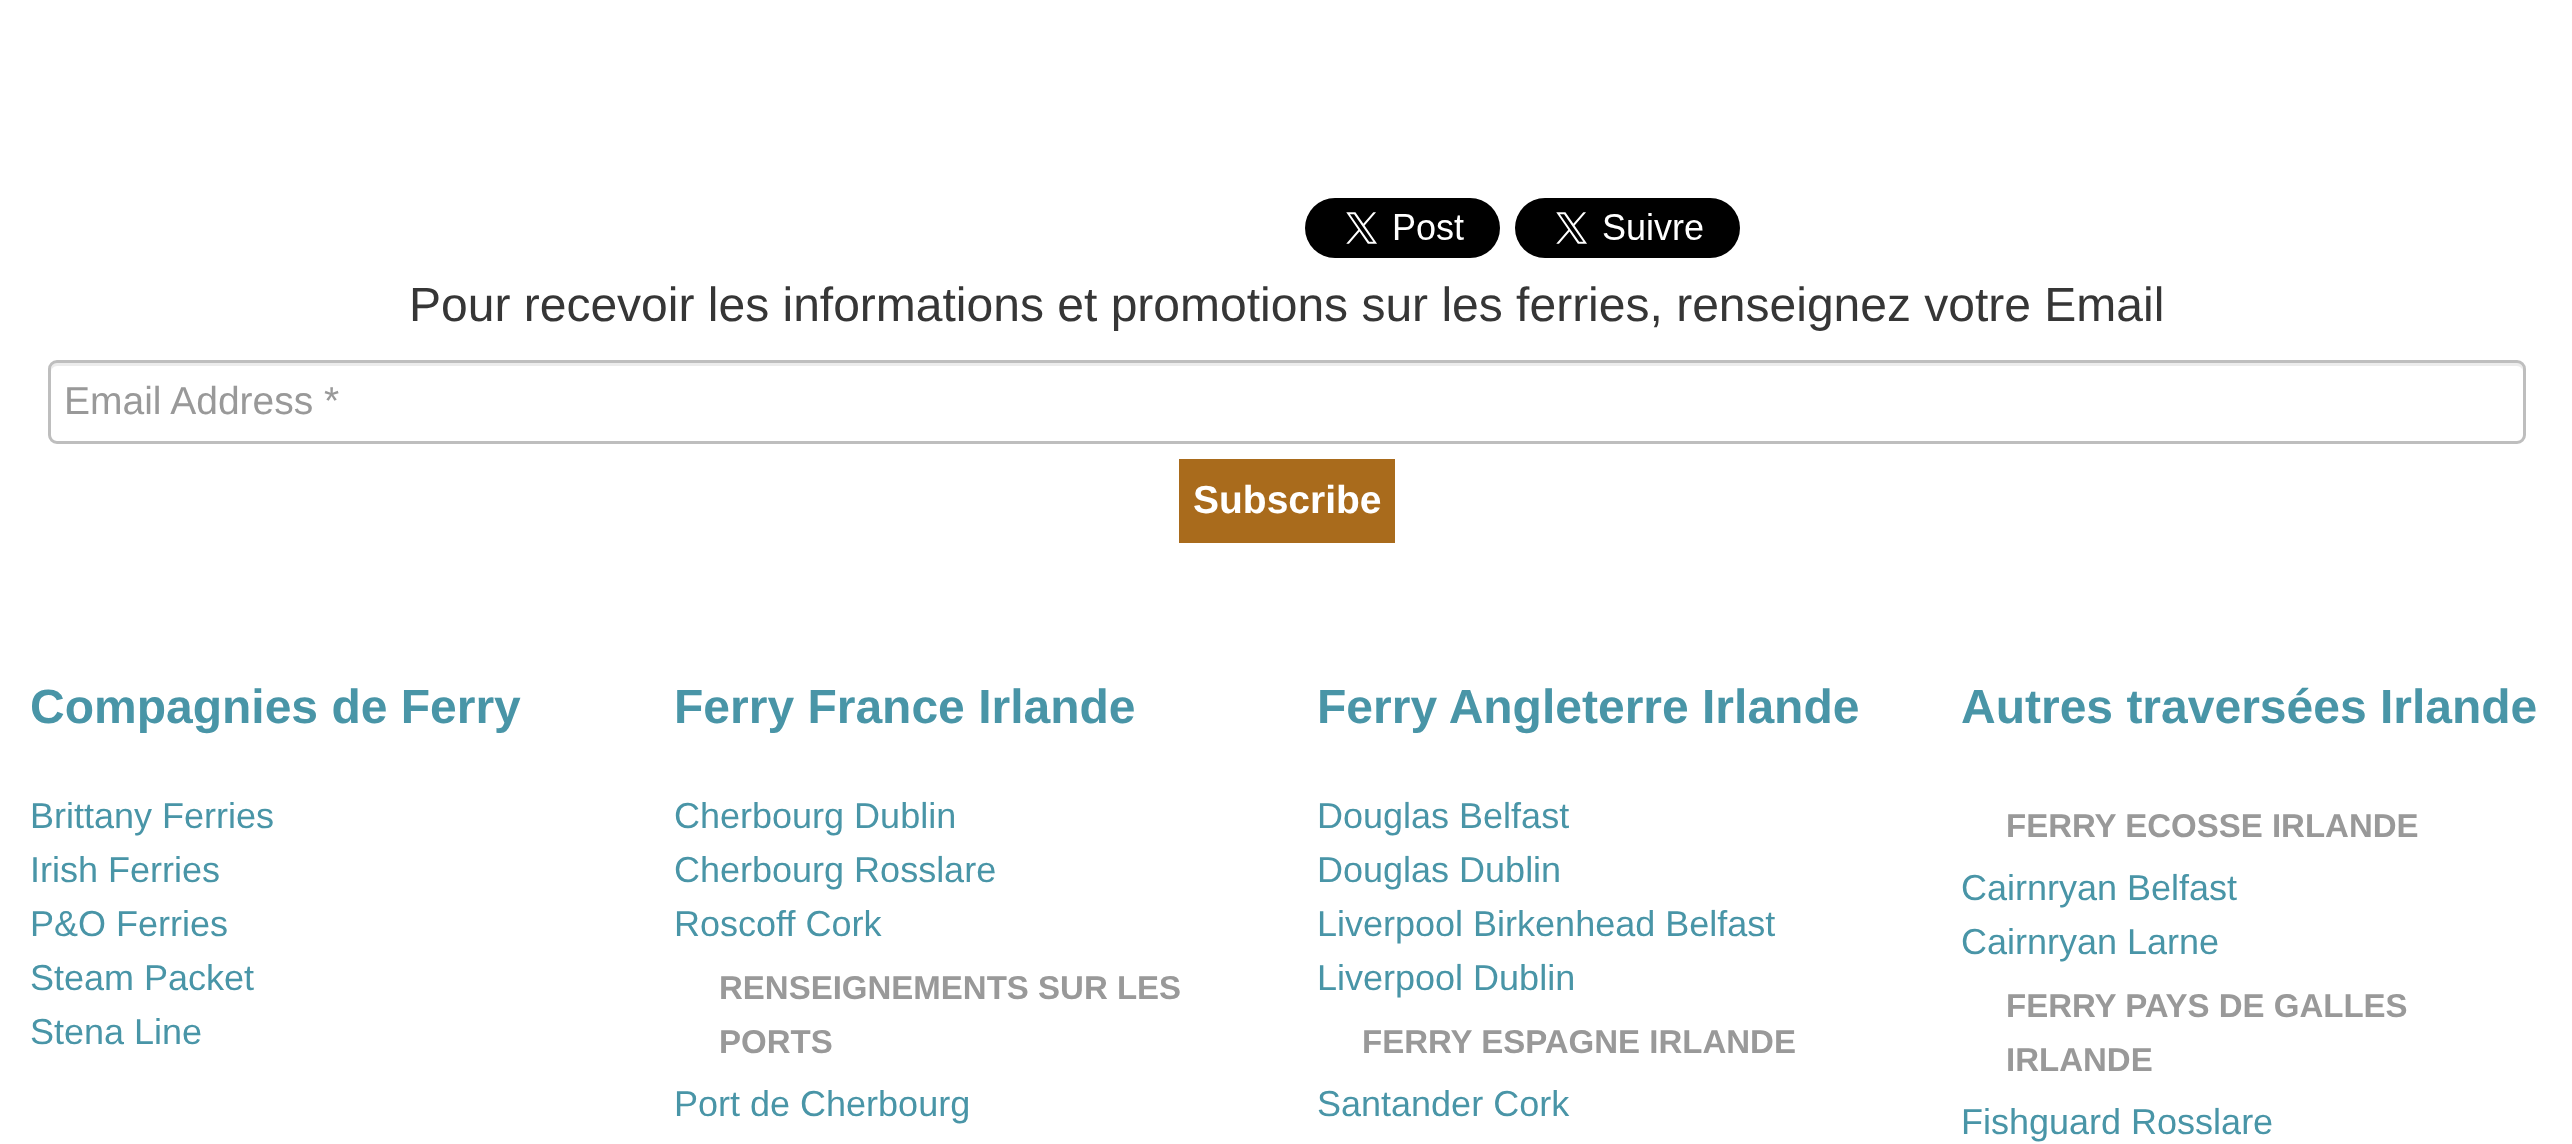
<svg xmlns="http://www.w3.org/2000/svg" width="2572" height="1144">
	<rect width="100%" height="100%" fill="#FFFFFF" />
	<image x="1305" y="198" width="195" height="60" href="assets/img1.png" />
	<image x="1515" y="198" width="225" height="60" href="assets/img2.png" />
	<text x="409" y="321" font-family="Liberation Sans" font-size="48" fill="#363636">Pour recevoir les informations et promotions sur les ferries, renseignez votre Email</text>
	<path d="M57 366H2517C2520 366 2523 369 2523 372C2523 368 2522 363 2517 363H57C52 363 51 368 51 372C51 369 54 366 57 366Z" fill="#ECECEC" />
	<rect x="49.5" y="361.5" width="2475" height="81" rx="7.5" fill="none" stroke="#BEBEBE" stroke-width="3" />
	<text x="64" y="414" font-family="Liberation Sans" font-size="39" fill="#999999">Email Address *</text>
	<rect x="1179" y="459" width="216" height="84" fill="#A96B1C" />
	<text x="1193" y="513" font-family="Liberation Sans" font-size="39" font-weight="700" fill="#FFFFFF">Subscribe</text>
	<text x="30" y="723" font-family="Liberation Sans" font-size="48" font-weight="700" fill="#4995A7">Compagnies de Ferry</text>
	<g font-family="Liberation Sans" font-size="36" fill="#4995A7">
		<text x="30" y="828">Brittany Ferries</text>
		<text x="30" y="882">Irish Ferries</text>
		<text x="30" y="936">P&amp;O Ferries</text>
		<text x="30" y="990">Steam Packet</text>
		<text x="30" y="1044">Stena Line</text>
	</g>
	<text x="674" y="723" font-family="Liberation Sans" font-size="48" font-weight="700" fill="#4995A7">Ferry France Irlande</text>
	<g font-family="Liberation Sans" font-size="36" fill="#4995A7">
		<text x="674" y="828">Cherbourg Dublin</text>
		<text x="674" y="882">Cherbourg Rosslare</text>
		<text x="674" y="936">Roscoff Cork</text>
	</g>
	<g font-family="Liberation Sans" font-size="33" font-weight="700" fill="#999999">
		<text x="719" y="999">RENSEIGNEMENTS SUR LES</text>
		<text x="719" y="1053">PORTS</text>
	</g>
	<text x="674" y="1116" font-family="Liberation Sans" font-size="36" fill="#4995A7">Port de Cherbourg</text>
	<text x="1317" y="723" font-family="Liberation Sans" font-size="48" font-weight="700" fill="#4995A7">Ferry Angleterre Irlande</text>
	<g font-family="Liberation Sans" font-size="36" fill="#4995A7">
		<text x="1317" y="828">Douglas Belfast</text>
		<text x="1317" y="882">Douglas Dublin</text>
		<text x="1317" y="936">Liverpool Birkenhead Belfast</text>
		<text x="1317" y="990">Liverpool Dublin</text>
	</g>
	<text x="1362" y="1053" font-family="Liberation Sans" font-size="33" font-weight="700" fill="#999999">FERRY ESPAGNE IRLANDE</text>
	<text x="1317" y="1116" font-family="Liberation Sans" font-size="36" fill="#4995A7">Santander Cork</text>
	<text x="1961" y="723" font-family="Liberation Sans" font-size="48" font-weight="700" fill="#4995A7">Autres traversées Irlande</text>
	<text x="2006" y="837" font-family="Liberation Sans" font-size="33" font-weight="700" fill="#999999">FERRY ECOSSE IRLANDE</text>
	<g font-family="Liberation Sans" font-size="36" fill="#4995A7">
		<text x="1961" y="900">Cairnryan Belfast</text>
		<text x="1961" y="954">Cairnryan Larne</text>
	</g>
	<g font-family="Liberation Sans" font-size="33" font-weight="700" fill="#999999">
		<text x="2006" y="1017">FERRY PAYS DE GALLES</text>
		<text x="2006" y="1071">IRLANDE</text>
	</g>
	<text x="1961" y="1134" font-family="Liberation Sans" font-size="36" fill="#4995A7">Fishguard Rosslare</text>
</svg>
